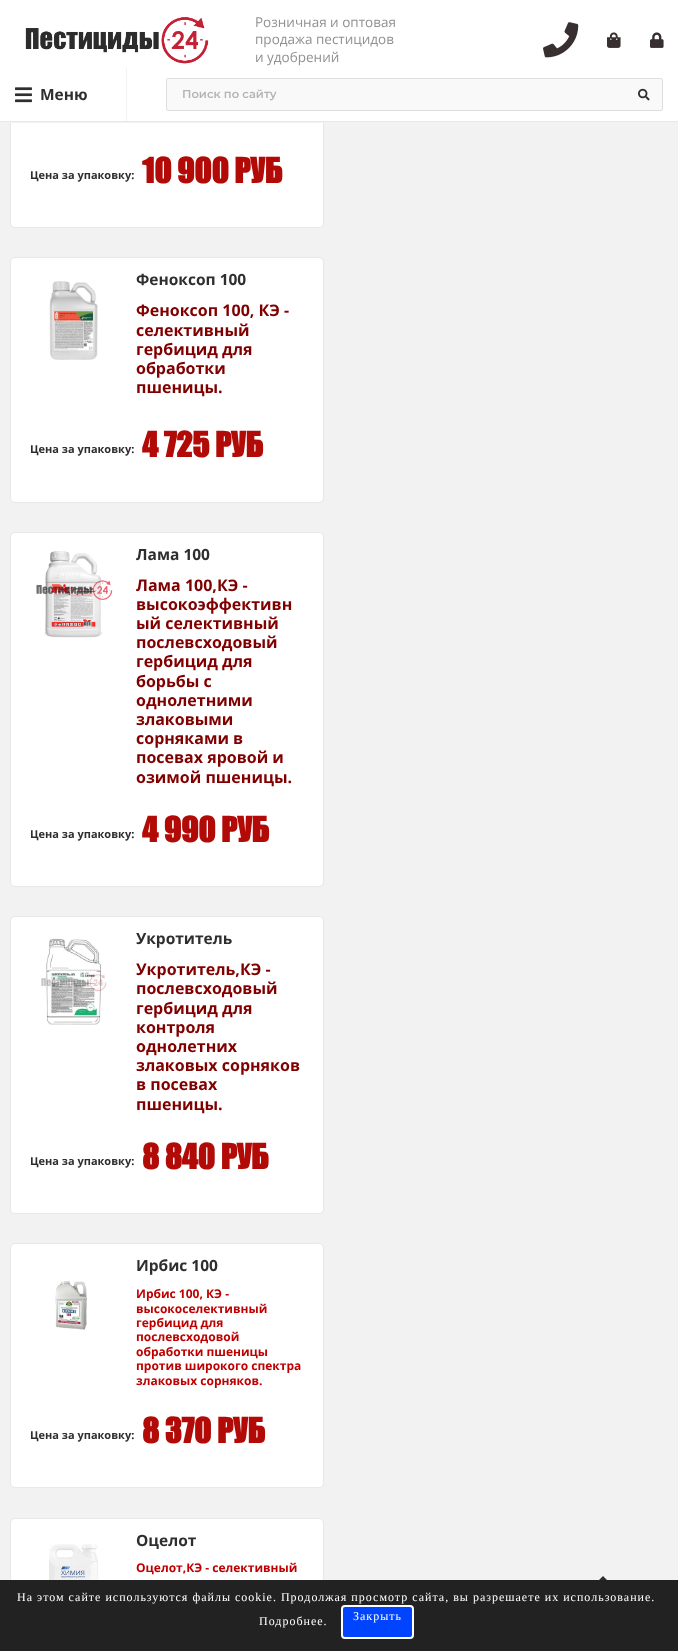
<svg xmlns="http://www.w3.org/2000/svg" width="678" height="1651">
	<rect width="100%" height="100%" fill="#F2F2F2" />
	<rect x="10.5" y="-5.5" width="313" height="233" rx="4.5" fill="#FFFFFF" stroke="#E8E8E8" />
	<rect x="0" y="0" width="678" height="121" fill="#FFFFFF" />
	<rect x="10" y="122" width="314" height="1" fill="#F2F2F2" />
	<image x="25" y="17" width="184" height="47" href="assets/img1.png" />
	<g font-family="Open Sans" font-size="13.5" fill="#919191">
		<text x="255" y="27">Розничная и оптовая</text>
		<text x="255" y="44">продажа пестицидов</text>
		<text x="255" y="62">и удобрений</text>
	</g>
	<image x="543" y="22" width="36" height="36" href="assets/img2.png" />
	<image x="607" y="32" width="14" height="16" href="assets/img3.png" />
	<image x="650" y="32" width="14" height="16" href="assets/img4.png" />
	<rect x="0" y="121" width="678" height="1" fill="#E8E8E8" />
	<rect x="126" y="68" width="1" height="53" fill="#F2F2F2" />
	<image x="15" y="87" width="17" height="16" href="assets/img5.png" />
	<text x="40" y="100" font-family="Open Sans" font-size="15.5" font-weight="700" fill="#2E2E2E">Меню</text>
	<rect x="166.5" y="78.5" width="496" height="32" rx="1.5" fill="#F9F9F9" stroke="#DEDEDE" />
	<text x="182" y="98" font-family="Montserrat" font-size="11.5" font-weight="600" fill="#B4B4B4">Поиск по сайту</text>
	<image x="638" y="88" width="12" height="13" href="assets/img6.png" />
	<text x="30" y="179" font-family="Open Sans" font-size="11" font-weight="700" fill="#2E2E2E">Цена за упаковку:</text>
	<text x="142" y="183" font-family="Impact" font-size="32" font-weight="700" fill="#B20B07">10 900 РУБ</text>
	<rect x="10.5" y="257.5" width="313" height="245" rx="4.5" fill="#FFFFFF" stroke="#E8E8E8" />
	<text x="136" y="285" font-family="Open Sans" font-size="15.5" font-weight="700" fill="#2E2E2E">Феноксоп 100</text>
	<g font-family="Open Sans" font-size="16" font-weight="700" fill="#800000">
		<text x="136" y="316">Феноксоп 100, КЭ -</text>
		<text x="136" y="336">селективный</text>
		<text x="136" y="355">гербицид для</text>
		<text x="136" y="374">обработки</text>
		<text x="136" y="393">пшеницы.</text>
	</g>
	<text x="30" y="453" font-family="Open Sans" font-size="11" font-weight="700" fill="#2E2E2E">Цена за упаковку:</text>
	<text x="142" y="457" font-family="Impact" font-size="32" font-weight="700" fill="#B20B07">4 725 РУБ</text>
	<image x="49" y="281" width="49" height="79" href="assets/img7.png" />
	<rect x="10.5" y="532.5" width="313" height="354" rx="4.5" fill="#FFFFFF" stroke="#E8E8E8" />
	<text x="136" y="560" font-family="Open Sans" font-size="15.5" font-weight="700" fill="#2E2E2E">Лама 100</text>
	<g font-family="Open Sans" font-size="16" font-weight="700" fill="#800000">
		<text x="136" y="591">Лама 100,КЭ -</text>
		<text x="136" y="610">высокоэффективн</text>
		<text x="136" y="629">ый селективный</text>
		<text x="136" y="648">послевсходовый</text>
		<text x="136" y="667">гербицид для</text>
		<text x="136" y="687">борьбы с</text>
		<text x="136" y="706">однолетними</text>
		<text x="136" y="725">злаковыми</text>
		<text x="136" y="744">сорняками в</text>
		<text x="136" y="763">посевах яровой и</text>
		<text x="136" y="783">озимой пшеницы.</text>
	</g>
	<text x="30" y="838" font-family="Open Sans" font-size="11" font-weight="700" fill="#2E2E2E">Цена за упаковку:</text>
	<text x="142" y="842" font-family="Impact" font-size="32" font-weight="700" fill="#B20B07">4 990 РУБ</text>
	<image x="36" y="551" width="77" height="87" href="assets/img8.png" />
	<rect x="10.5" y="916.5" width="313" height="297" rx="4.5" fill="#FFFFFF" stroke="#E8E8E8" />
	<text x="136" y="944" font-family="Open Sans" font-size="15.5" font-weight="700" fill="#2E2E2E">Укротитель</text>
	<g font-family="Open Sans" font-size="16" font-weight="700" fill="#800000">
		<text x="136" y="975">Укротитель,КЭ -</text>
		<text x="136" y="994">послевсходовый</text>
		<text x="136" y="1014">гербицид для</text>
		<text x="136" y="1033">контроля</text>
		<text x="136" y="1052">однолетних</text>
		<text x="136" y="1071">злаковых сорняков</text>
		<text x="136" y="1090">в посевах</text>
		<text x="136" y="1110">пшеницы.</text>
	</g>
	<text x="30" y="1165" font-family="Open Sans" font-size="11" font-weight="700" fill="#2E2E2E">Цена за упаковку:</text>
	<text x="142" y="1169" font-family="Impact" font-size="32" font-weight="700" fill="#B20B07">8 840 РУБ</text>
	<image x="41" y="938" width="66" height="87" href="assets/img9.png" />
	<rect x="10.5" y="1243.5" width="313" height="244" rx="4.5" fill="#FFFFFF" stroke="#E8E8E8" />
	<text x="136" y="1271" font-family="Open Sans" font-size="15.5" font-weight="700" fill="#2E2E2E">Ирбис 100</text>
	<g font-family="Open Sans" font-size="12" font-weight="700" fill="#BF0000">
		<text x="136" y="1298">Ирбис 100, КЭ -</text>
		<text x="136" y="1313">высокоселективный</text>
		<text x="136" y="1327">гербицид для</text>
		<text x="136" y="1341">послевсходовой</text>
		<text x="136" y="1356">обработки пшеницы</text>
		<text x="136" y="1370">против широкого спектра</text>
		<text x="136" y="1385">злаковых сорняков.</text>
	</g>
	<text x="30" y="1439" font-family="Open Sans" font-size="11" font-weight="700" fill="#2E2E2E">Цена за упаковку:</text>
	<g font-family="Impact" font-size="32" font-weight="700" fill="#B20B07">
		<text x="142" y="1443">8 370</text>
		<text x="217" y="1443">РУБ</text>
	</g>
	<image x="55" y="1281" width="32" height="49" href="assets/img10.png" />
	<rect x="10.5" y="1518.5" width="313" height="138" rx="4.5" fill="#FFFFFF" stroke="#E8E8E8" />
	<image x="49" y="1544" width="50" height="36" href="assets/img11.png" />
	<text x="136" y="1546" font-family="Open Sans" font-size="15.5" font-weight="700" fill="#2E2E2E">Оцелот</text>
	<text x="136" y="1572" font-family="Open Sans" font-size="12" font-weight="700" fill="#BF0000">Оцелот,КЭ - селективный</text>
	<path d="M628 1601H578L603 1576Z" fill="#2E2E2E" />
	<rect x="0" y="1580" width="678" height="71" fill="#222222" />
	<g font-family="Liberation Serif" font-size="12" letter-spacing="1" fill="#FFFFFF">
		<text x="17" y="1601">На этом сайте используются файлы cookie. Продолжая просмотр сайта, вы разрешаете их использование.</text>
		<text x="259" y="1625">Подробнее.</text>
	</g>
	<rect x="342" y="1606" width="71" height="32" rx="3" fill="#0044FF" stroke="#FFFFFF" stroke-width="2" />
	<text x="353" y="1620" font-family="Liberation Serif" font-size="12" letter-spacing="1" fill="#FFFFFF">Закрыть</text>
</svg>
